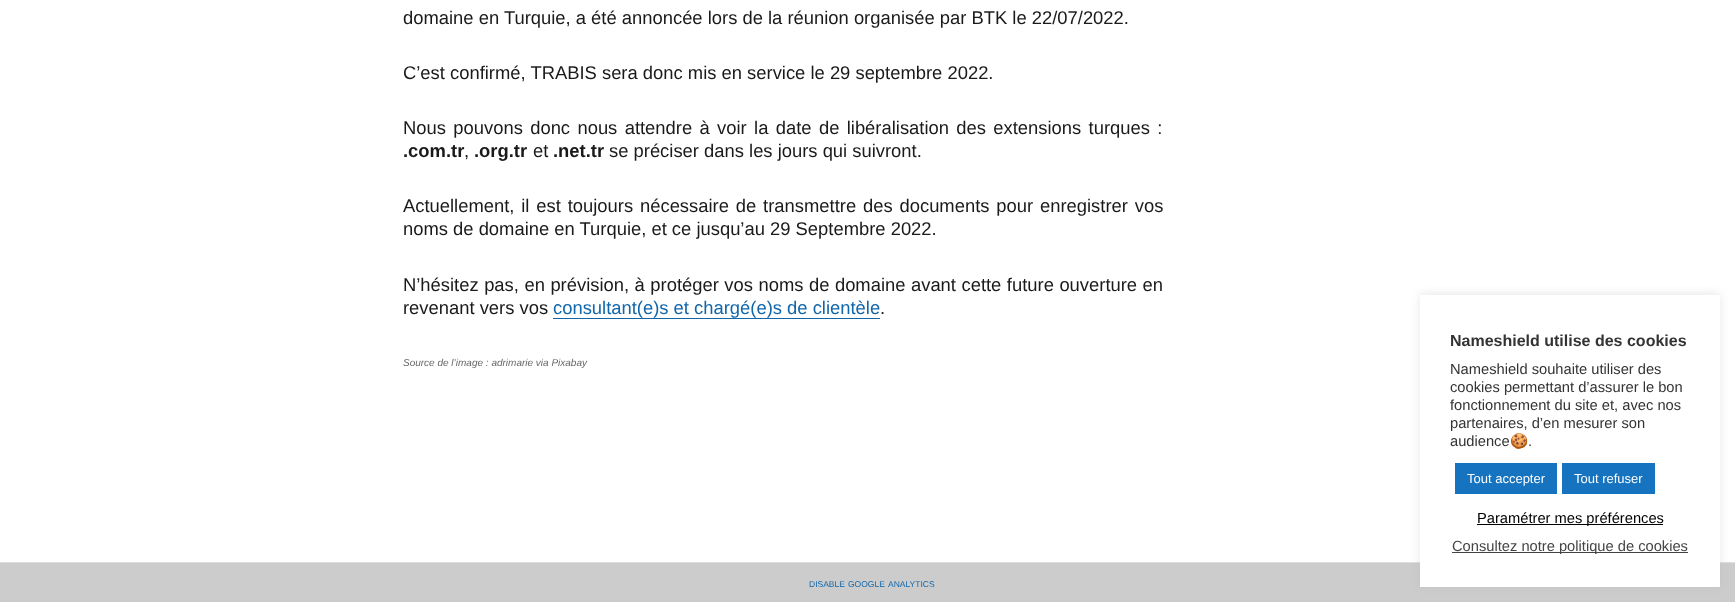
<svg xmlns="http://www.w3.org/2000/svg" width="1735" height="602">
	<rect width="100%" height="100%" fill="#CCCCCC" />
	<rect x="0" y="0" width="1735" height="562" fill="#FFFFFF" />
	<g font-family="Liberation Sans" font-size="18.4" fill="#1A1A1A">
		<text x="403" y="24">domaine en Turquie, a été annoncée lors de la réunion organisée par BTK le 22/07/2022.</text>
		<text x="403" y="79">C’est confirmé, TRABIS sera donc mis en service le 29 septembre 2022.</text>
		<text x="403" y="134" word-spacing="2.25">Nous pouvons donc nous attendre à voir la date de libéralisation des extensions turques :</text>
	</g>
	<text x="403" y="157" font-family="Liberation Sans" font-size="18.4" font-weight="700" fill="#1A1A1A">.com.tr</text>
	<text x="464" y="157" font-family="Liberation Sans" font-size="18.4" fill="#1A1A1A">,</text>
	<text x="474" y="157" font-family="Liberation Sans" font-size="18.4" font-weight="700" fill="#1A1A1A">.org.tr</text>
	<text x="533" y="157" font-family="Liberation Sans" font-size="18.4" fill="#1A1A1A">et</text>
	<text x="553" y="157" font-family="Liberation Sans" font-size="18.4" font-weight="700" fill="#1A1A1A">.net.tr</text>
	<g font-family="Liberation Sans" font-size="18.4" fill="#1A1A1A">
		<text x="609" y="157">se préciser dans les jours qui suivront.</text>
		<text x="403" y="212" word-spacing="1.75">Actuellement, il est toujours nécessaire de transmettre des documents pour enregistrer vos</text>
		<text x="403" y="235">noms de domaine en Turquie, et ce jusqu’au 29 Septembre 2022.</text>
		<text x="403" y="291" word-spacing="0.4">N’hésitez pas, en prévision, à protéger vos noms de domaine avant cette future ouverture en</text>
		<text x="403" y="314">revenant vers vos</text>
	</g>
	<text x="553" y="314" font-family="Liberation Sans" font-size="18.4" fill="#1166AA">consultant(e)s et chargé(e)s de clientèle</text>
	<rect x="553" y="318" width="327" height="1" fill="#1166AA" />
	<text x="880" y="314" font-family="Liberation Sans" font-size="18.4" fill="#1A1A1A">.</text>
	<text x="403" y="366" font-family="Liberation Sans" font-size="10" font-style="italic" fill="#686868">Source de l’image : adrimarie via Pixabay</text>
	<rect x="0" y="562" width="1735" height="1" fill="#DEDEDE" />
	<rect x="1420" y="294" width="300" height="292" fill="#ACABAB" fill-opacity="0.3" filter="blur(5px)" />
	<rect x="1420" y="295" width="300" height="292" fill="#FFFFFF" />
	<text x="1450" y="346" font-family="Liberation Sans" font-size="16" font-weight="700" fill="#333333">Nameshield utilise des cookies</text>
	<g font-family="Liberation Sans" font-size="14.7" fill="#333333">
		<text x="1450" y="374">Nameshield souhaite utiliser des</text>
		<text x="1450" y="392">cookies permettant d’assurer le bon</text>
		<text x="1450" y="410">fonctionnement du site et, avec nos</text>
		<text x="1450" y="428">partenaires, d’en mesurer son</text>
		<text x="1450" y="446">audience</text>
	</g>
	<text x="1510" y="446" font-family="Noto Color Emoji" font-size="14.7" fill="#333333">🍪</text>
	<text x="1528" y="446" font-family="Liberation Sans" font-size="14.7" fill="#333333">.</text>
	<rect x="1455" y="463" width="102" height="31" fill="#1573BF" />
	<text x="1467" y="483" font-family="Liberation Sans" font-size="13" fill="#FFFFFF">Tout accepter</text>
	<rect x="1562" y="463" width="93" height="31" fill="#1573BF" />
	<text x="1574" y="483" font-family="Liberation Sans" font-size="13" fill="#FFFFFF">Tout refuser</text>
	<rect x="1477" y="524" width="186" height="1" fill="#000000" />
	<text x="1477" y="523" font-family="Liberation Sans" font-size="14.7" fill="#000000">Paramétrer mes préférences</text>
	<rect x="1452" y="552" width="236" height="1" fill="#444444" />
	<text x="1452" y="551" font-family="Liberation Sans" font-size="14.7" fill="#444444">Consultez notre politique de cookies</text>
	<g font-family="Liberation Sans" font-size="8.5" fill="#1166AA">
		<text x="809" y="587">DISABLE</text>
		<text x="848" y="587">GOOGLE</text>
		<text x="888" y="587">ANALYTICS</text>
	</g>
</svg>
